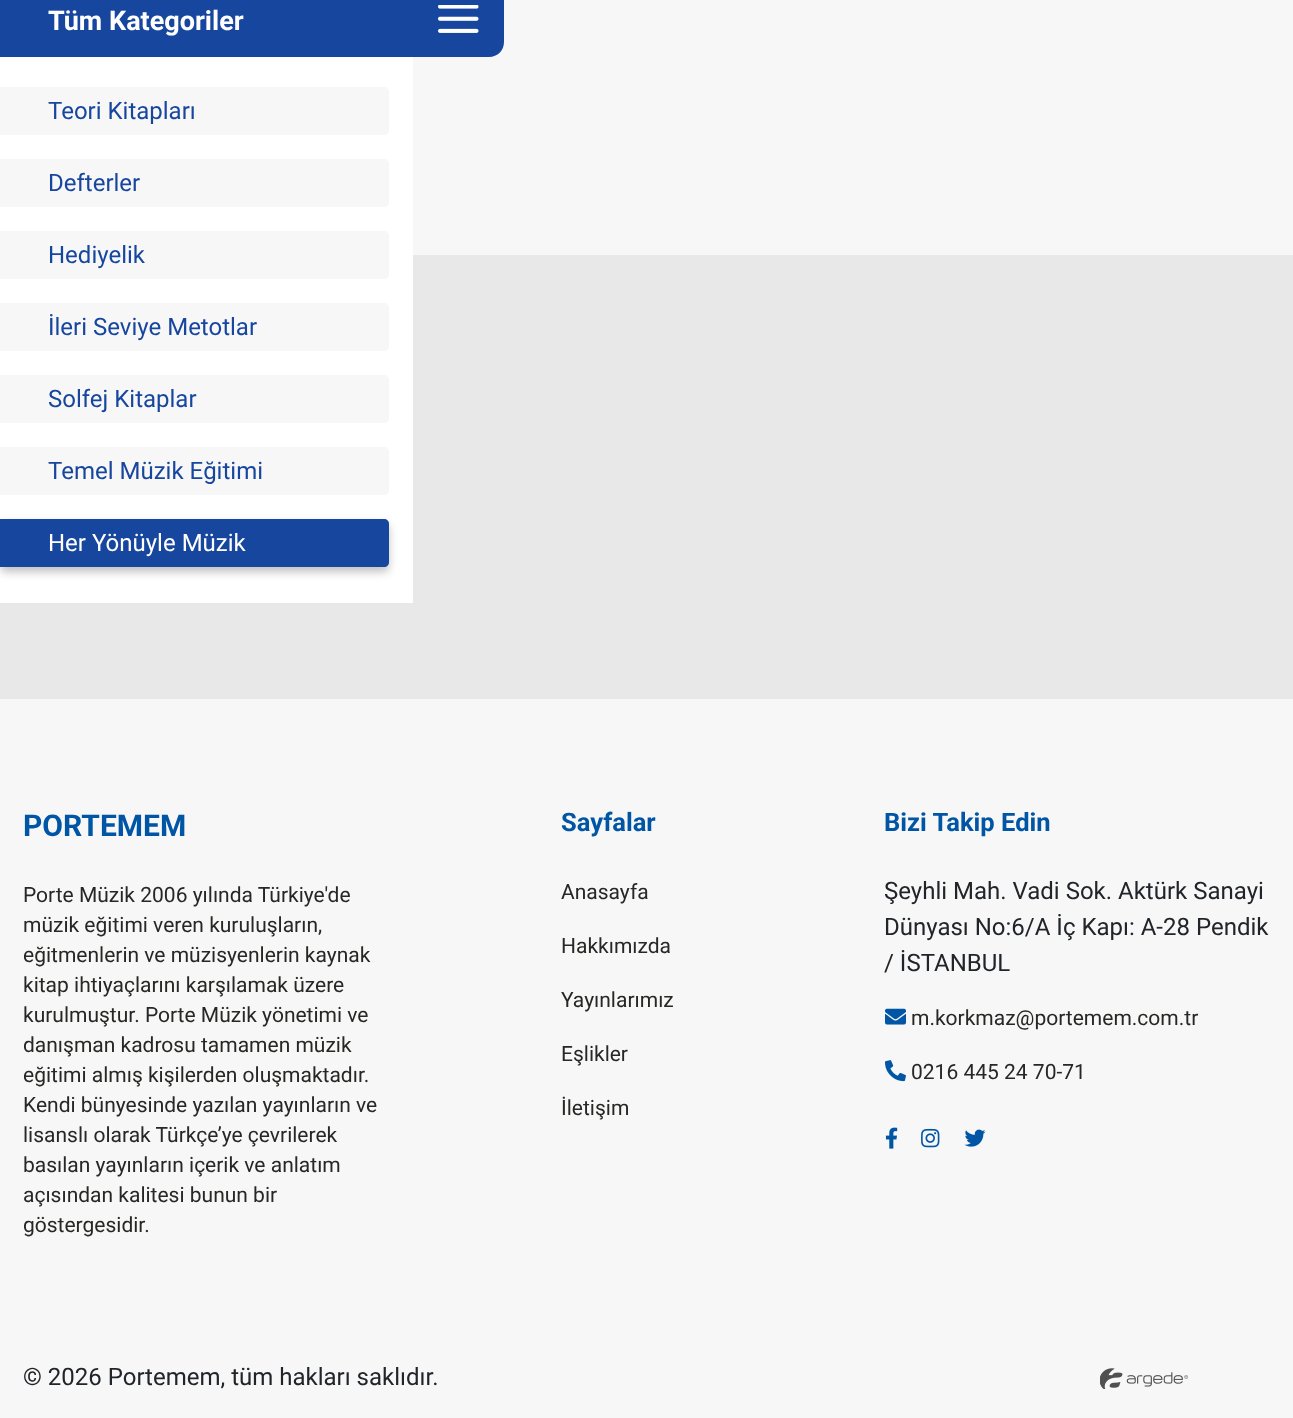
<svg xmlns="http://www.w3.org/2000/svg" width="1293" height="1418">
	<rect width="100%" height="100%" fill="#E8E8E8" />
	<rect x="413" y="0" width="880" height="255" fill="#F7F7F7" />
	<rect x="0" y="57" width="413" height="546" fill="#FFFFFF" />
	<rect x="87" y="514" width="1" height="2" fill="#FBFBFB" />
	<rect x="0" y="0" width="413" height="57" fill="#17469E" />
	<text x="48" y="30" font-family="Roboto" font-size="27" font-weight="700" fill="#FFFFFF">Tüm Kategoriler</text>
	<path d="M0 87H384C387 87 389 89 389 92V130C389 133 387 135 384 135H0Z" fill="#F7F7F7" />
	<text x="48" y="119" font-family="Roboto" font-size="24" fill="#17469E">Teori Kitapları</text>
	<path d="M0 159H384C387 159 389 161 389 164V202C389 205 387 207 384 207H0Z" fill="#F7F7F7" />
	<text x="48" y="191" font-family="Roboto" font-size="24" fill="#17469E">Defterler</text>
	<path d="M0 231H384C387 231 389 233 389 236V274C389 277 387 279 384 279H0Z" fill="#F7F7F7" />
	<text x="48" y="263" font-family="Roboto" font-size="24" fill="#17469E">Hediyelik</text>
	<path d="M0 303H384C387 303 389 305 389 308V346C389 349 387 351 384 351H0Z" fill="#F7F7F7" />
	<text x="48" y="335" font-family="Roboto" font-size="24" fill="#17469E">İleri Seviye Metotlar</text>
	<path d="M0 375H384C387 375 389 377 389 380V418C389 421 387 423 384 423H0Z" fill="#F7F7F7" />
	<text x="48" y="407" font-family="Roboto" font-size="24" fill="#17469E">Solfej Kitaplar</text>
	<path d="M0 447H384C387 447 389 449 389 452V490C389 493 387 495 384 495H0Z" fill="#F7F7F7" />
	<text x="48" y="479" font-family="Roboto" font-size="24" fill="#17469E">Temel Müzik Eğitimi</text>
	<rect x="0" y="524" width="389" height="48" rx="5" fill="#000000" fill-opacity="0.24" filter="blur(4px)" />
	<path d="M0 519H384C387 519 389 521 389 524V562C389 565 387 567 384 567H0Z" fill="#17469E" />
	<text x="48" y="551" font-family="Roboto" font-size="24" fill="#FFFFFF">Her Yönüyle Müzik</text>
	<path d="M413-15H489C497.5-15 504-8.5 504 0V42C504 50.5 497.5 57 489 57H413Z" fill="#17469E" />
	<image x="438" y="5" width="41" height="28" href="assets/img1.png" />
	<rect x="0" y="699" width="1293" height="719" fill="#F7F7F7" />
	<text x="23" y="836" font-family="Roboto" font-size="30" font-weight="700" fill="#0056A5">PORTEMEM</text>
	<g font-family="Roboto" font-size="21" fill="#272725">
		<text x="23" y="902">Porte Müzik 2006 yılında Türkiye'de</text>
		<text x="23" y="932">müzik eğitimi veren kuruluşların,</text>
		<text x="23" y="962">eğitmenlerin ve müzisyenlerin kaynak</text>
		<text x="23" y="992">kitap ihtiyaçlarını karşılamak üzere</text>
		<text x="23" y="1022">kurulmuştur. Porte Müzik yönetimi ve</text>
		<text x="23" y="1052">danışman kadrosu tamamen müzik</text>
		<text x="23" y="1082">eğitimi almış kişilerden oluşmaktadır.</text>
		<text x="23" y="1112">Kendi bünyesinde yazılan yayınların ve</text>
		<text x="23" y="1142">lisanslı olarak Türkçe’ye çevrilerek</text>
		<text x="23" y="1172">basılan yayınların içerik ve anlatım</text>
		<text x="23" y="1202">açısından kalitesi bunun bir</text>
		<text x="23" y="1232">göstergesidir.</text>
	</g>
	<text x="561" y="831" font-family="Roboto" font-size="25.5" font-weight="700" fill="#0056A5">Sayfalar</text>
	<g font-family="Roboto" font-size="21" fill="#272725">
		<text x="561" y="899">Anasayfa</text>
		<text x="561" y="953">Hakkımızda</text>
		<text x="561" y="1007">Yayınlarımız</text>
		<text x="561" y="1061">Eşlikler</text>
		<text x="561" y="1115">İletişim</text>
	</g>
	<text x="884" y="831" font-family="Roboto" font-size="25.5" font-weight="700" fill="#0056A5">Bizi Takip Edin</text>
	<g font-family="Roboto" font-size="24" fill="#212529">
		<text x="884" y="899">Şeyhli Mah. Vadi Sok. Aktürk Sanayi</text>
		<text x="884" y="935">Dünyası No:6/A İç Kapı: A-28 Pendik</text>
		<text x="884" y="971">/ İSTANBUL</text>
	</g>
	<image x="885" y="1008" width="21" height="17" href="assets/img2.png" />
	<text x="911" y="1025" font-family="Roboto" font-size="21" fill="#272725">m.korkmaz@portemem.com.tr</text>
	<image x="885" y="1060" width="21" height="22" href="assets/img3.png" />
	<text x="911" y="1079" font-family="Roboto" font-size="21" fill="#272725">0216 445 24 70-71</text>
	<image x="885" y="1127" width="13" height="22" href="assets/img4.png" />
	<image x="921" y="1128" width="19" height="20" href="assets/img5.png" />
	<image x="964" y="1129" width="22" height="18" href="assets/img6.png" />
	<text x="23" y="1385" font-family="Roboto" font-size="24" fill="#212529">© 2026 Portemem, tüm hakları saklıdır.</text>
	<image x="1100" y="1368" width="88" height="21" href="assets/img7.png" />
</svg>
